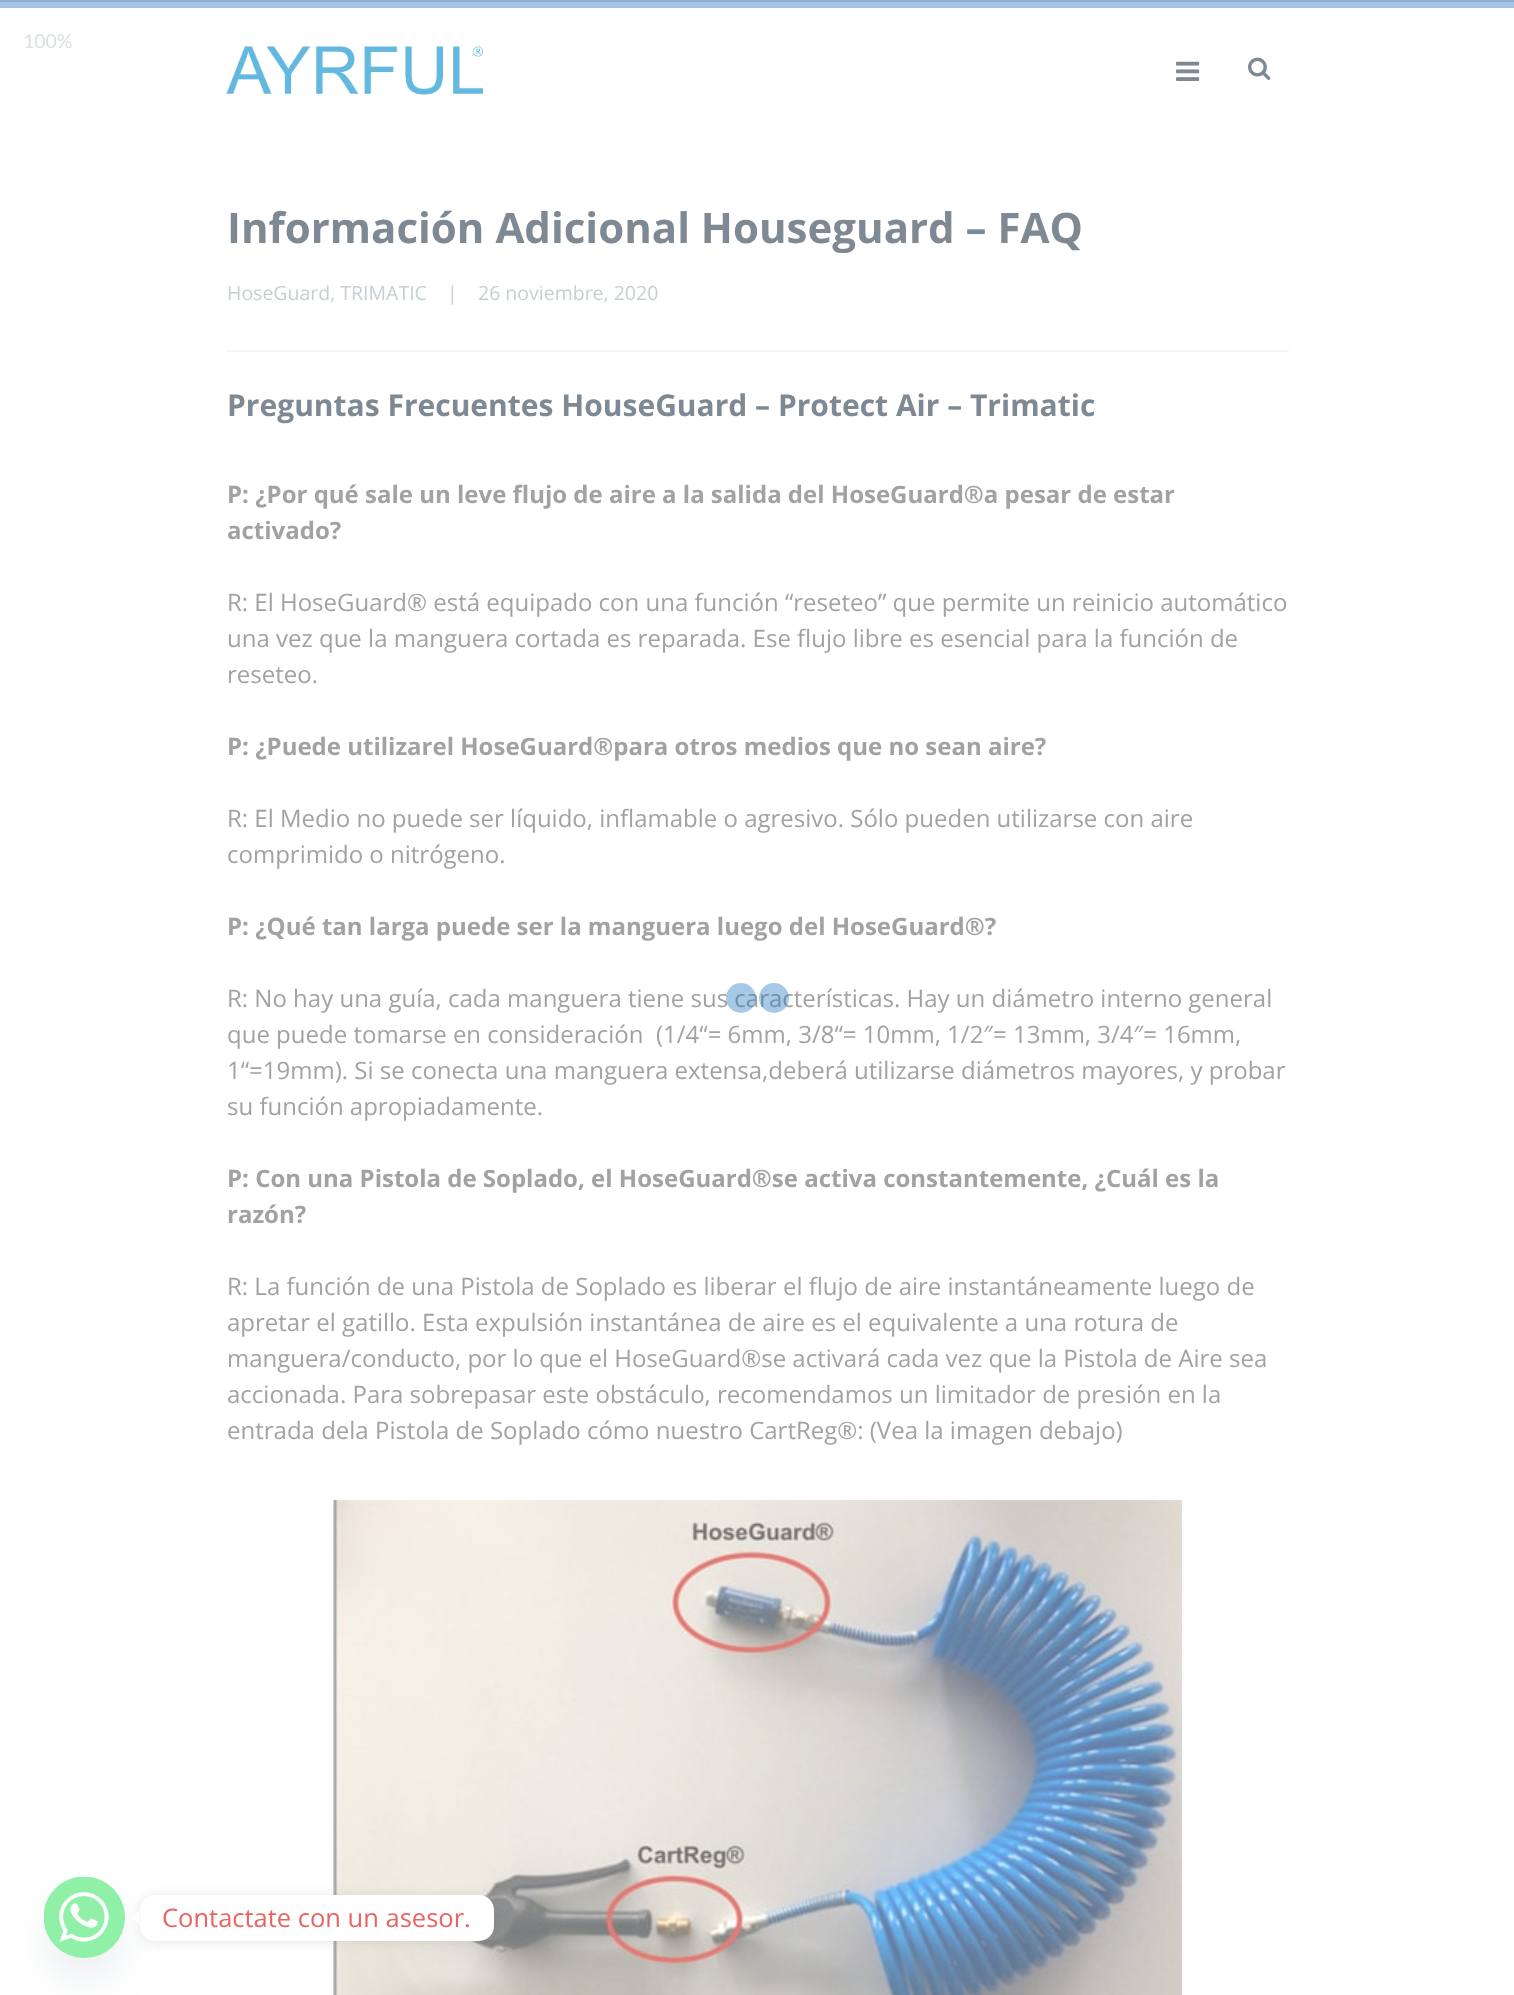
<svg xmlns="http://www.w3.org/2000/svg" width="1514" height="1995">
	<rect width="100%" height="100%" fill="#FFFFFF" />
	<text x="23" y="48" font-family="Lato" font-size="19.5" fill="#DAE0E5">100%</text>
	<text x="227" y="1007" font-family="Open Sans" font-size="24" fill="#A2A2A2">R: No hay una guía, cada manguera tiene sus características. Hay un diámetro interno general</text>
	<circle cx="741" cy="998" r="15" fill="#1E73BE" fill-opacity="0.39" />
	<circle cx="774" cy="998" r="15" fill="#1E73BE" fill-opacity="0.39" />
	<rect x="0" y="2" width="1514" height="6" fill="#A3C5E3" />
	<rect x="0" y="0" width="1514" height="2" fill="#8DB1D0" />
	<image x="226" y="46" width="257" height="49" href="assets/img1.png" />
	<image x="1176" y="61" width="24" height="20" href="assets/img2.png" />
	<image x="1248" y="57" width="23" height="23" href="assets/img3.png" />
	<text x="227" y="243" font-family="Open Sans" font-size="42" font-weight="700" fill="#7E8994">Información Adicional Houseguard – FAQ</text>
	<rect x="227" y="350" width="1062" height="2" fill="#F3F6F6" />
	<g font-family="Open Sans" font-size="19.5" fill="#C6CFD6">
		<text x="227" y="300">HoseGuard, TRIMATIC</text>
		<text x="447" y="300">|</text>
		<text x="478" y="300">26 noviembre, 2020</text>
	</g>
	<text x="227" y="416" font-family="Open Sans" font-size="30" font-weight="700" fill="#7E8994">Preguntas Frecuentes HouseGuard – Protect Air – Trimatic</text>
	<g font-family="Open Sans" font-size="24" font-weight="700" fill="#A2A2A2">
		<text x="227" y="503">P: ¿Por qué sale un leve flujo de aire a la salida del HoseGuard®a pesar de estar</text>
		<text x="227" y="539">activado?</text>
	</g>
	<g font-family="Open Sans" font-size="24" fill="#A2A2A2">
		<text x="227" y="611">R: El HoseGuard® está equipado con una función “reseteo” que permite un reinicio automático</text>
		<text x="227" y="647">una vez que la manguera cortada es reparada. Ese flujo libre es esencial para la función de</text>
		<text x="227" y="683">reseteo.</text>
	</g>
	<text x="227" y="755" font-family="Open Sans" font-size="24" font-weight="700" fill="#A2A2A2">P: ¿Puede utilizarel HoseGuard®para otros medios que no sean aire?</text>
	<g font-family="Open Sans" font-size="24" fill="#A2A2A2">
		<text x="227" y="827">R: El Medio no puede ser líquido, inflamable o agresivo. Sólo pueden utilizarse con aire</text>
		<text x="227" y="863">comprimido o nitrógeno.</text>
	</g>
	<text x="227" y="935" font-family="Open Sans" font-size="24" font-weight="700" fill="#A2A2A2">P: ¿Qué tan larga puede ser la manguera luego del HoseGuard®?</text>
	<g font-family="Open Sans" font-size="24" fill="#A2A2A2">
		<text x="227" y="1043" xml:space="preserve">que puede tomarse en consideración  (1/4“= 6mm, 3/8“= 10mm, 1/2″= 13mm, 3/4″= 16mm,</text>
		<text x="227" y="1079">1“=19mm). Si se conecta una manguera extensa,deberá utilizarse diámetros mayores, y probar</text>
		<text x="227" y="1115">su función apropiadamente.</text>
	</g>
	<g font-family="Open Sans" font-size="24" font-weight="700" fill="#A2A2A2">
		<text x="227" y="1187">P: Con una Pistola de Soplado, el HoseGuard®se activa constantemente, ¿Cuál es la</text>
		<text x="227" y="1223">razón?</text>
	</g>
	<g font-family="Open Sans" font-size="24" fill="#A2A2A2">
		<text x="227" y="1295">R: La función de una Pistola de Soplado es liberar el flujo de aire instantáneamente luego de</text>
		<text x="227" y="1331">apretar el gatillo. Esta expulsión instantánea de aire es el equivalente a una rotura de</text>
		<text x="227" y="1367">manguera/conducto, por lo que el HoseGuard®se activará cada vez que la Pistola de Aire sea</text>
		<text x="227" y="1403">accionada. Para sobrepasar este obstáculo, recomendamos un limitador de presión en la</text>
		<text x="227" y="1439">entrada dela Pistola de Soplado cómo nuestro CartReg®: (Vea la imagen debajo)</text>
	</g>
	<image x="333" y="1500" width="849" height="495" href="assets/img4.png" />
	<rect x="44" y="1901" width="81" height="81" rx="40.5" fill="#90A3B0" fill-opacity="0.16" filter="blur(18px)" />
	<circle cx="84.5" cy="1917.5" r="40.5" fill="#90F0A8" />
	<image x="44" y="1877" width="81" height="81" href="assets/img5.png" />
	<rect x="140" y="1896" width="354" height="47" rx="15" fill="#636363" fill-opacity="0.15" filter="blur(6px)" />
	<rect x="140" y="1895" width="354" height="46" rx="15" fill="#FFFFFF" />
	<path d="M139.5 1910V1925L132 1918Z" fill="#FFFFFF" />
	<text x="162" y="1927" font-family="Open Sans" font-size="25.5" fill="#EA6363">Contactate con un asesor.</text>
</svg>
